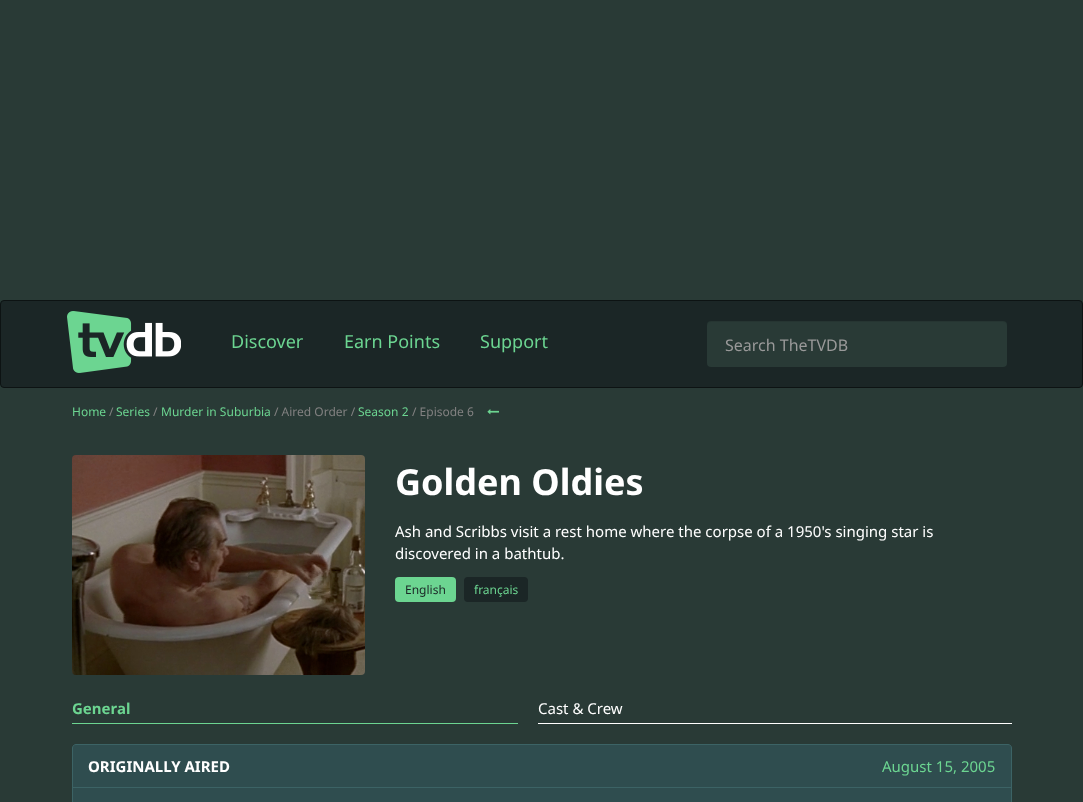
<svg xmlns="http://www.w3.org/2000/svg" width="1083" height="802">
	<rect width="100%" height="100%" fill="#293A36" />
	<rect x="0.5" y="300.5" width="1082" height="87" rx="3.5" fill="#1B2626" stroke="#0D1313" />
	<image x="67" y="311" width="114" height="62" href="assets/img1.png" />
	<g font-family="Noto Sans" font-size="18" fill="#6CD591">
		<text x="231" y="348">Discover</text>
		<text x="344" y="348">Earn Points</text>
		<text x="480" y="348">Support</text>
	</g>
	<rect x="707" y="321" width="300" height="46" rx="4" fill="#293A36" />
	<path d="M711 322H1003C1005 322 1007 324 1007 326C1007 323 1006 321 1003 321H711C708 321 707 323 707 326C707 324 709 322 711 322Z" fill="#000000" fill-opacity="0.07" />
	<text x="725" y="351" font-family="Noto Sans" font-size="16" fill="#999999">Search TheTVDB</text>
	<text x="72" y="416" font-family="Noto Sans" font-size="12" fill="#6CD591">Home</text>
	<text x="109" y="416" font-family="Noto Sans" font-size="12" fill="#828181">/</text>
	<text x="116" y="416" font-family="Noto Sans" font-size="12" fill="#6CD591">Series</text>
	<text x="153" y="416" font-family="Noto Sans" font-size="12" fill="#828181">/</text>
	<text x="161" y="416" font-family="Noto Sans" font-size="12" fill="#6CD591">Murder in Suburbia</text>
	<text x="274" y="416" font-family="Noto Sans" font-size="12" fill="#828181">/ Aired Order /</text>
	<text x="358" y="416" font-family="Noto Sans" font-size="12" fill="#6CD591">Season 2</text>
	<text x="412" y="416" font-family="Noto Sans" font-size="12" fill="#828181">/ Episode 6</text>
	<image x="487" y="409" width="12" height="6" href="assets/img2.png" />
	<image x="72" y="455" width="293" height="220" href="assets/img3.png" />
	<text x="395" y="495" font-family="Noto Sans" font-size="36" font-weight="700" fill="#FFFFFF">Golden Oldies</text>
	<g font-family="Noto Sans" font-size="15" fill="#FFFFFF">
		<text x="395" y="537">Ash and Scribbs visit a rest home where the corpse of a 1950's singing star is</text>
		<text x="395" y="559">discovered in a bathtub.</text>
	</g>
	<rect x="395" y="577" width="61" height="25" rx="4" fill="#6CD591" />
	<text x="405" y="594" font-family="Noto Sans" font-size="12" fill="#1B2626">English</text>
	<rect x="464" y="577" width="64" height="25" rx="4" fill="#1B2626" />
	<text x="474" y="594" font-family="Noto Sans" font-size="12" fill="#6CD591">français</text>
	<rect x="72" y="723" width="446" height="1" fill="#6CD591" />
	<text x="72" y="714" font-family="Noto Sans" font-size="15" font-weight="700" fill="#6CD591">General</text>
	<rect x="538" y="723" width="474" height="1" fill="#FFFFFF" />
	<text x="538" y="714" font-family="Noto Sans" font-size="15" fill="#FFFFFF">Cast &amp; Crew</text>
	<path d="M76 744.5H1008C1010 744.5 1011.5 746 1011.5 748V787.5H72.5V748C72.5 746 74 744.5 76 744.5Z" fill="#2F4D4F" stroke="#3C6365" />
	<text x="88" y="772" font-family="Noto Sans" font-size="15" font-weight="700" fill="#FFFFFF">ORIGINALLY AIRED</text>
	<text x="882" y="772" font-family="Noto Sans" font-size="15" fill="#6CD591">August 15, 2005</text>
	<rect x="72.5" y="787.5" width="939" height="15" fill="#2F4D4F" stroke="#3C6365" />
</svg>
